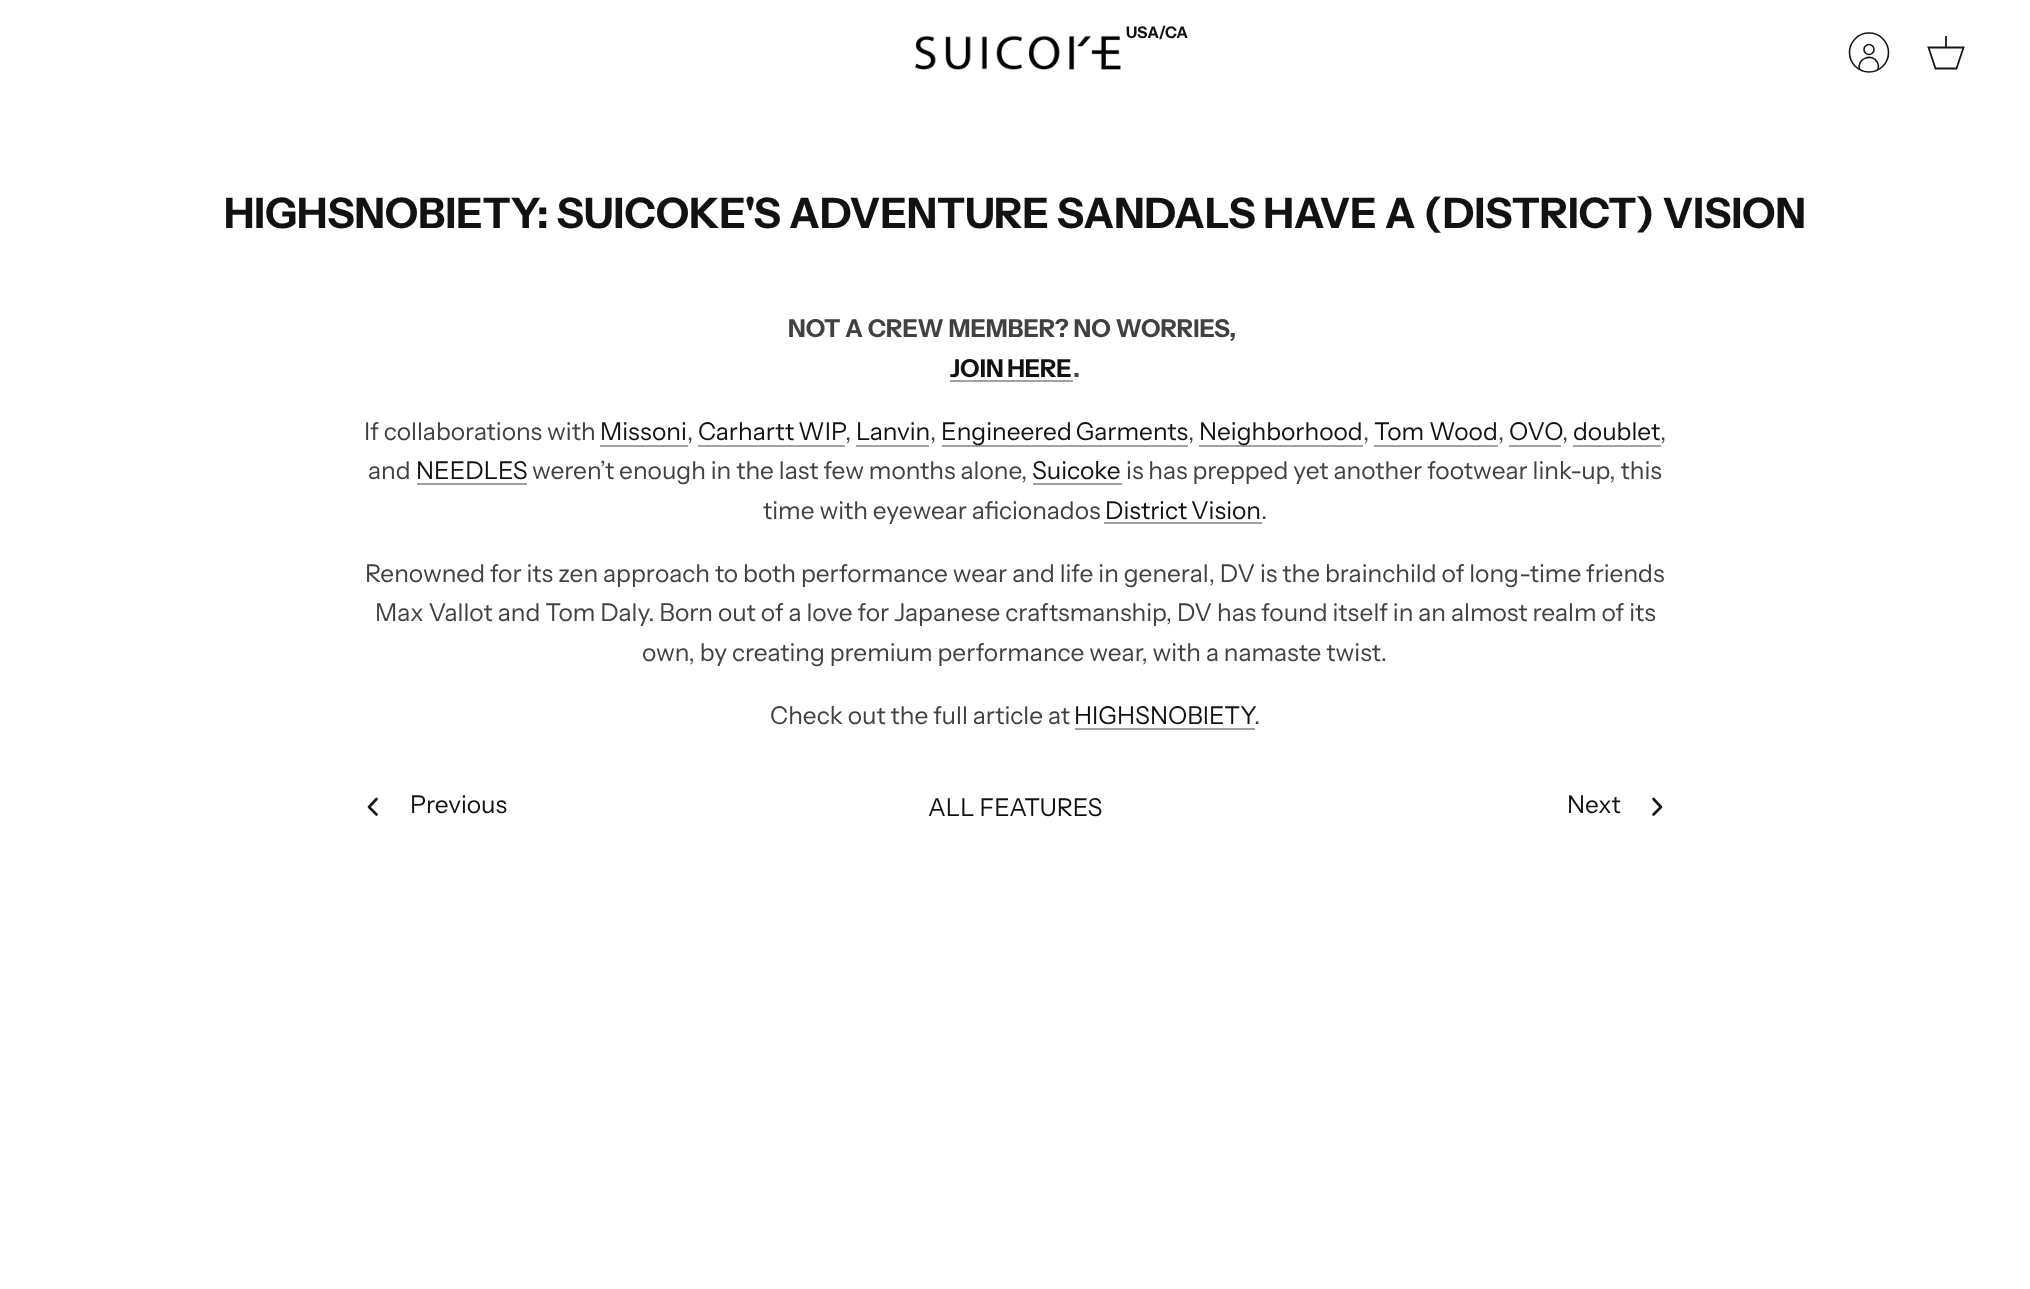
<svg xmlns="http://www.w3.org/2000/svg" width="2030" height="1289">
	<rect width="100%" height="100%" fill="#FFFFFF" />
	<text x="1126" y="38" font-family="Instrument Sans" font-size="16" font-weight="700" fill="#121212">USA/CA</text>
	<image x="915" y="35" width="206" height="35" href="assets/img1.png" />
	<path d="M1878 69.5C1879 67 1878.5 64.5 1877.5 62.5C1872 52.5 1856.5 58.5 1859.5 69.5" fill="none" stroke="#171717" stroke-width="1.6" />
	<circle cx="1869" cy="49.5" r="5" fill="none" stroke="#171717" stroke-width="1.6" />
	<circle cx="1869" cy="52.5" r="19.5" fill="none" stroke="#171717" stroke-width="1.6" />
	<path d="M1928.5 47.5H1963.5L1956.5 68.5H1935.5Z" fill="none" stroke="#171717" stroke-width="1.8" />
	<rect x="1945" y="36" width="2" height="12" fill="#171717" fill-opacity="0.9" />
	<text x="224" y="228" font-family="Instrument Sans" font-size="42" font-weight="700" fill="#121212">HIGHSNOBIETY: SUICOKE'S ADVENTURE SANDALS HAVE A (DISTRICT) VISION</text>
	<text x="788" y="337" font-family="Instrument Sans" font-size="24.5" font-weight="700" fill="#414141">NOT A CREW MEMBER? NO WORRIES,</text>
	<text x="950" y="377" word-spacing="-1" font-family="Instrument Sans" font-size="24.5" font-weight="700" fill="#121212">JOIN HERE</text>
	<text x="1073" y="377" font-family="Instrument Sans" font-size="24.5" font-weight="700" fill="#414141">.</text>
	<rect x="950" y="380" width="123" height="2" fill="#A2A2A2" />
	<text x="364" y="440" font-family="Instrument Sans" font-size="24.5" fill="#414141">If collaborations with</text>
	<text x="600" y="440" font-family="Instrument Sans" font-size="24.5" fill="#121212">Missoni</text>
	<rect x="600" y="445" width="88" height="2" fill="#A2A2A2" />
	<text x="687" y="440" font-family="Instrument Sans" font-size="24.5" fill="#414141">,</text>
	<text x="698" y="440" word-spacing="-1" font-family="Instrument Sans" font-size="24.5" fill="#121212">Carhartt WIP</text>
	<rect x="698" y="445" width="147" height="2" fill="#A2A2A2" />
	<text x="845" y="440" font-family="Instrument Sans" font-size="24.5" fill="#414141">,</text>
	<text x="856" y="440" font-family="Instrument Sans" font-size="24.5" fill="#121212">Lanvin</text>
	<rect x="856" y="445" width="73" height="2" fill="#A2A2A2" />
	<text x="930" y="440" font-family="Instrument Sans" font-size="24.5" fill="#414141">,</text>
	<rect x="942" y="445" width="246" height="2" fill="#A2A2A2" />
	<text x="941" y="440" word-spacing="-1" font-family="Instrument Sans" font-size="24.5" fill="#121212">Engineered Garments</text>
	<text x="1188" y="440" font-family="Instrument Sans" font-size="24.5" fill="#414141">,</text>
	<rect x="1199" y="445" width="164" height="2" fill="#A2A2A2" />
	<text x="1199" y="440" font-family="Instrument Sans" font-size="24.5" fill="#121212">Neighborhood</text>
	<text x="1363" y="440" font-family="Instrument Sans" font-size="24.5" fill="#414141">,</text>
	<text x="1374" y="440" font-family="Instrument Sans" font-size="24.5" fill="#121212">Tom Wood</text>
	<rect x="1374" y="445" width="124" height="2" fill="#A2A2A2" />
	<text x="1498" y="440" font-family="Instrument Sans" font-size="24.5" fill="#414141">,</text>
	<text x="1509" y="440" font-family="Instrument Sans" font-size="24.5" fill="#121212">OVO</text>
	<rect x="1509" y="445" width="52" height="2" fill="#A2A2A2" />
	<text x="1562" y="440" font-family="Instrument Sans" font-size="24.5" fill="#414141">,</text>
	<text x="1573" y="440" font-family="Instrument Sans" font-size="24.5" fill="#121212">doublet</text>
	<rect x="1573" y="445" width="88" height="2" fill="#A2A2A2" />
	<g font-family="Instrument Sans" font-size="24.5" fill="#414141">
		<text x="1660" y="440">,</text>
		<text x="368" y="479">and</text>
	</g>
	<text x="416" y="479" font-family="Instrument Sans" font-size="24.5" fill="#121212">NEEDLES</text>
	<rect x="417" y="483" width="110" height="2" fill="#A2A2A2" />
	<text x="532" y="479" font-family="Instrument Sans" font-size="24.5" fill="#414141">weren’t enough in the last few months alone,</text>
	<text x="1032" y="479" font-family="Instrument Sans" font-size="24.5" fill="#121212">Suicoke</text>
	<rect x="1033" y="483" width="89" height="2" fill="#A2A2A2" />
	<g font-family="Instrument Sans" font-size="24.5" fill="#414141">
		<text x="1126" y="479">is has prepped yet another footwear link-up, this</text>
		<text x="763" y="519">time with eyewear aficionados</text>
	</g>
	<text x="1105" y="519" word-spacing="-1" font-family="Instrument Sans" font-size="24.5" fill="#121212">District Vision</text>
	<rect x="1104" y="522" width="158" height="2" fill="#A2A2A2" />
	<g font-family="Instrument Sans" font-size="24.5" fill="#414141">
		<text x="1261" y="519">.</text>
		<text x="365" y="582">Renowned for its zen approach to both performance wear and life in general, DV is the brainchild of long-time friends</text>
		<text x="375" y="621">Max Vallot and Tom Daly. Born out of a love for Japanese craftsmanship, DV has found itself in an almost realm of its</text>
		<text x="642" y="661">own, by creating premium performance wear, with a namaste twist.</text>
		<text x="770" y="724">Check out the full article at</text>
	</g>
	<text x="1074" y="724" font-family="Instrument Sans" font-size="24.5" fill="#121212">HIGHSNOBIETY</text>
	<rect x="1075" y="728" width="180" height="2" fill="#A2A2A2" />
	<text x="1254" y="724" font-family="Instrument Sans" font-size="24.5" fill="#414141">.</text>
	<path d="M376.5 814.5L369 807L376.5 799" fill="none" stroke="#171717" stroke-width="2.6" stroke-linecap="round" stroke-linejoin="round" />
	<g font-family="Instrument Sans" font-size="24.5" fill="#121212">
		<text x="410" y="813">Previous</text>
		<text x="928" y="816">ALL FEATURES</text>
		<text x="1567" y="813">Next</text>
	</g>
	<path d="M1653.5 814.5L1661 807L1653.5 799" fill="none" stroke="#171717" stroke-width="2.6" stroke-linecap="round" stroke-linejoin="round" />
</svg>
